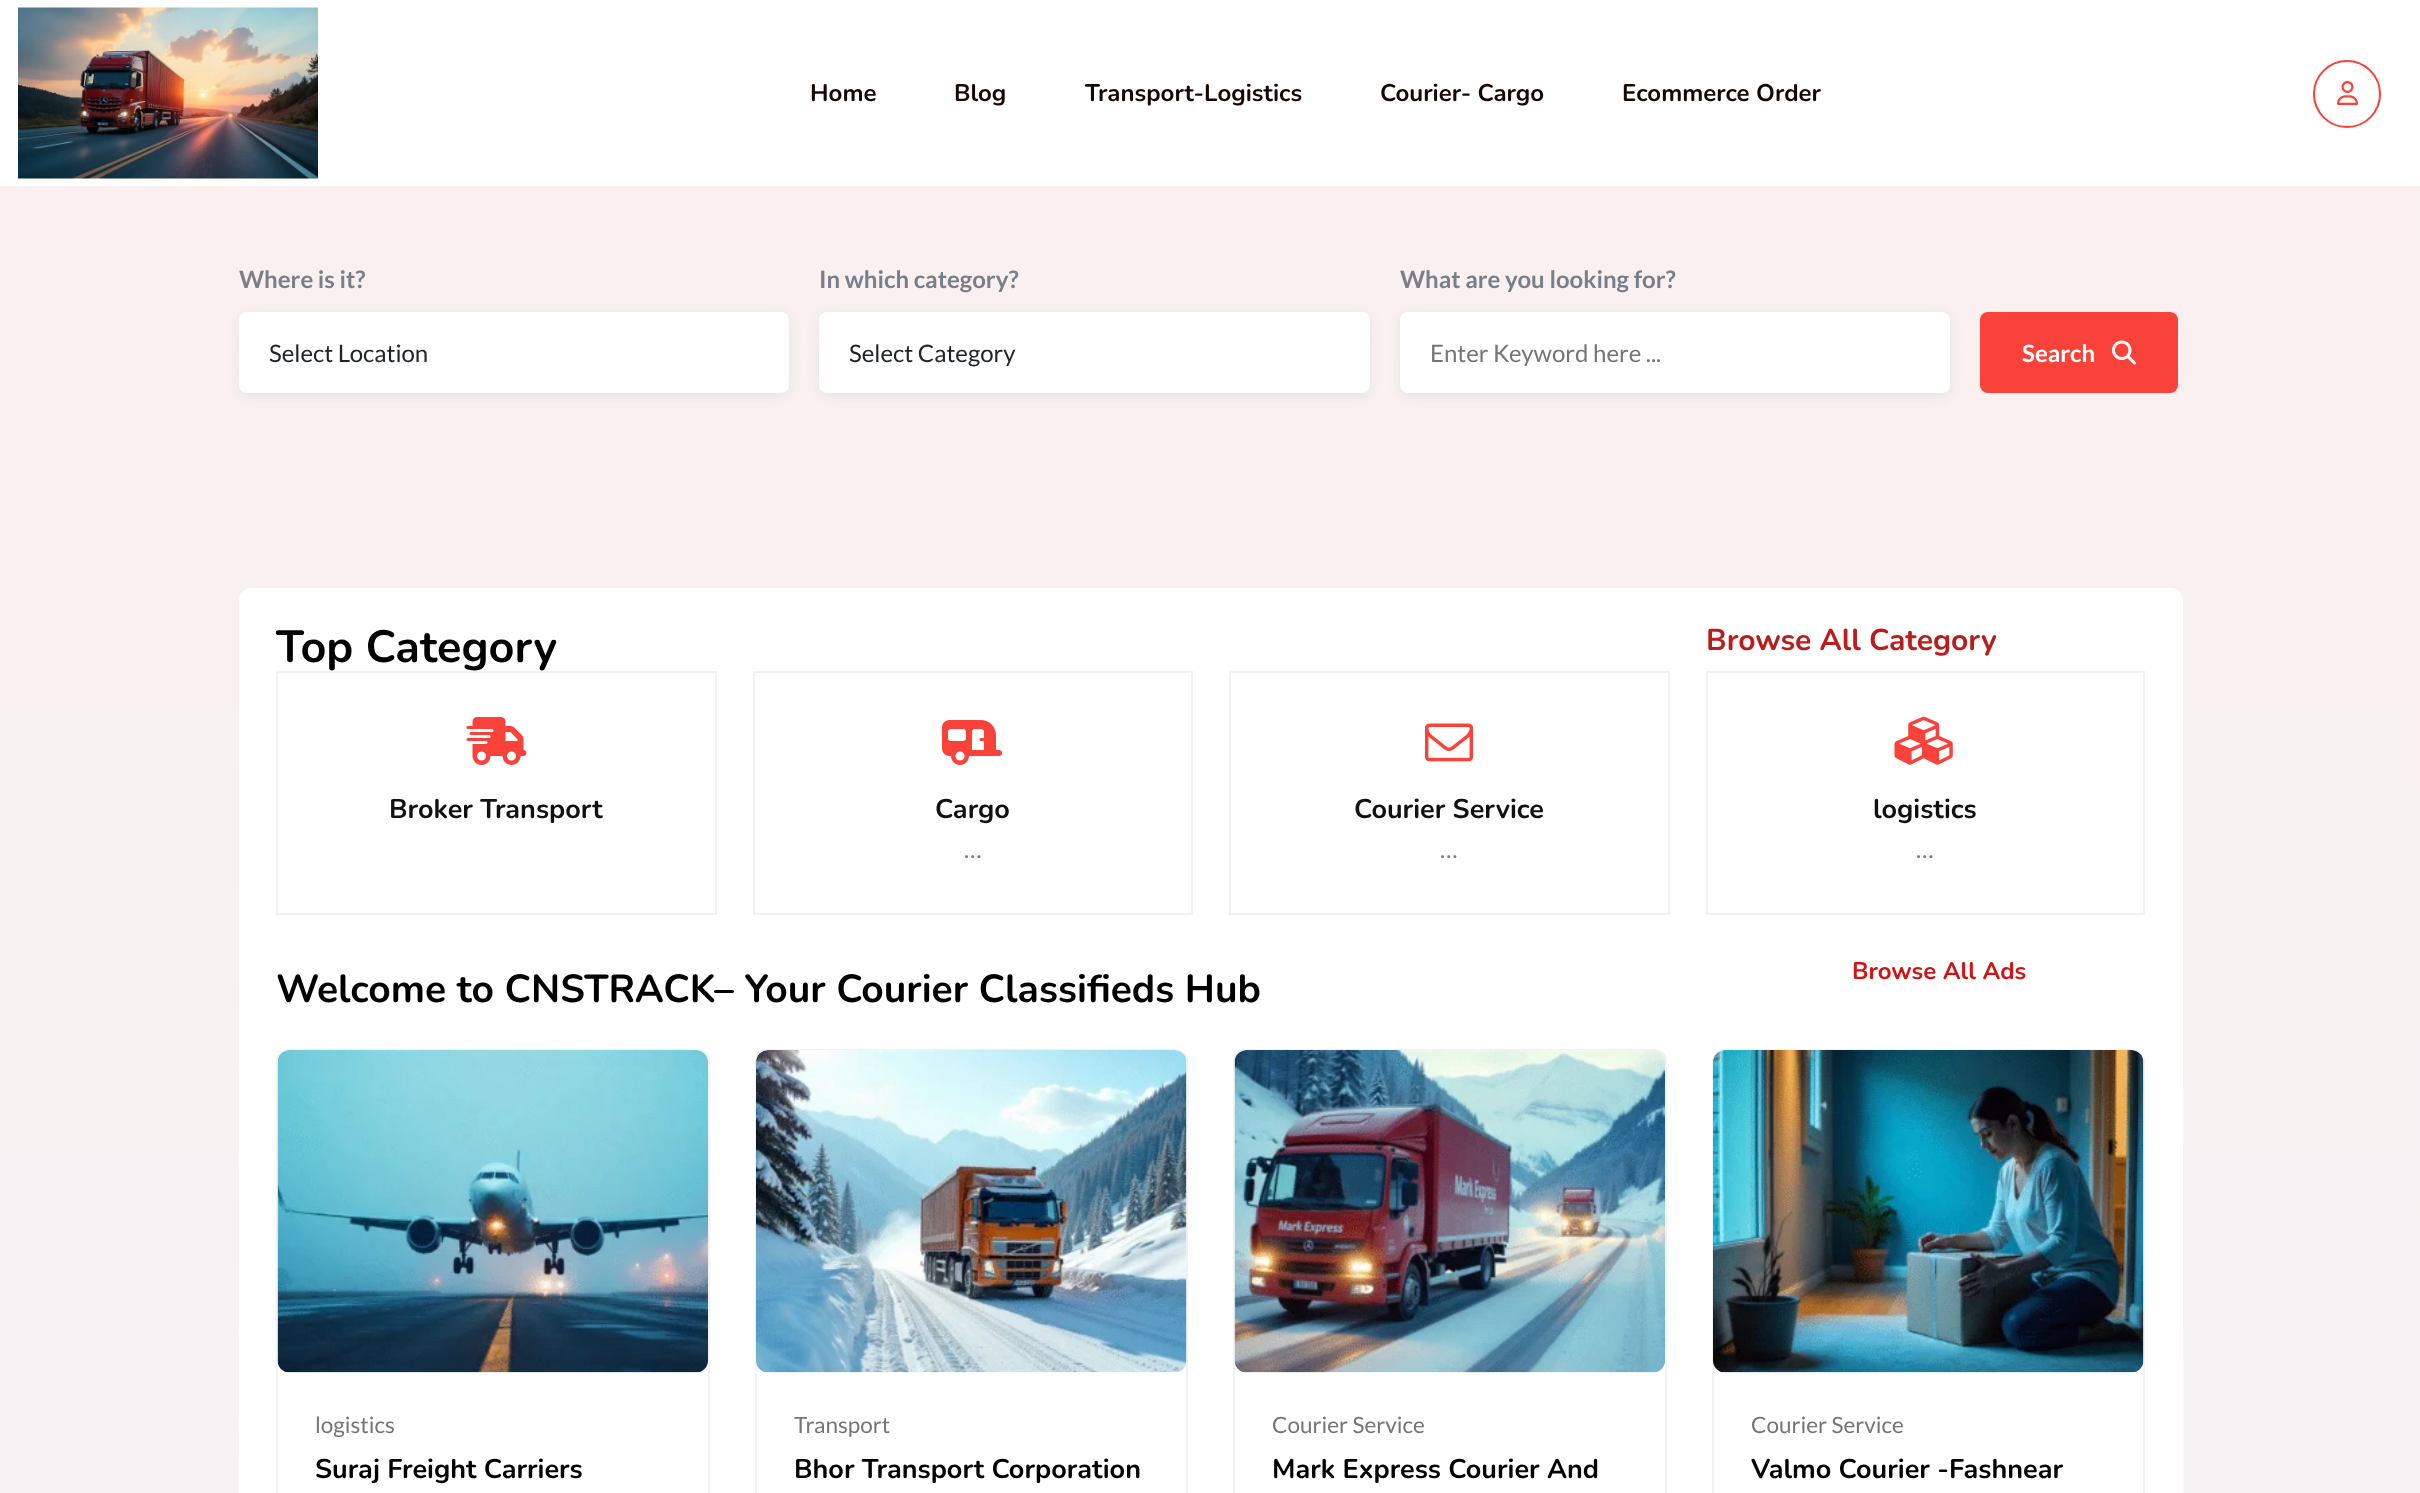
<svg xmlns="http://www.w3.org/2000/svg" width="2420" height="1493">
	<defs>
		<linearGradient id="g1" gradientUnits="userSpaceOnUse" x1="1210" y1="0" x2="1211" y2="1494"><stop offset="0" stop-color="#FCEFEF" /><stop offset="1" stop-color="#F5F3F4" /></linearGradient>
	</defs>
	<rect width="100%" height="100%" fill="#FFFFFF" />
	<rect x="0" y="186" width="2420" height="1307" fill="url(#g1)" />
	<image x="18" y="7" width="300" height="172" href="assets/img1.png" />
	<g font-family="Nunito" font-size="24" font-weight="700" fill="#180605">
		<text x="810" y="101">Home</text>
		<text x="954" y="101">Blog</text>
		<text x="1085" y="101">Transport-Logistics</text>
		<text x="1380" y="101">Courier- Cargo</text>
		<text x="1622" y="101">Ecommerce Order</text>
	</g>
	<circle cx="2347" cy="94" r="33" fill="none" stroke="#F9423A" stroke-width="2" />
	<image x="2337" y="81" width="21" height="24" href="assets/img2.png" />
	<text x="239" y="288" font-family="Lato" font-size="24" font-weight="700" fill="#797F89">Where is it?</text>
	<rect x="239" y="315" width="550" height="81" rx="8" fill="#E4E4E4" filter="blur(6px)" />
	<rect x="239" y="312" width="550" height="81" rx="8" fill="#FFFFFF" />
	<text x="269" y="362" font-family="Lato" font-size="24" fill="#212529">Select Location</text>
	<text x="819" y="288" font-family="Lato" font-size="24" font-weight="700" fill="#797F89">In which category?</text>
	<rect x="819" y="315" width="551" height="81" rx="8" fill="#E4E4E4" filter="blur(6px)" />
	<rect x="819" y="312" width="551" height="81" rx="8" fill="#FFFFFF" />
	<text x="849" y="362" font-family="Lato" font-size="24" fill="#212529">Select Category</text>
	<text x="1400" y="288" font-family="Lato" font-size="24" font-weight="700" fill="#797F89">What are you looking for?</text>
	<rect x="1400" y="315" width="550" height="81" rx="8" fill="#E4E4E4" filter="blur(6px)" />
	<rect x="1400" y="312" width="550" height="81" rx="8" fill="#FFFFFF" />
	<text x="1430" y="362" font-family="Lato" font-size="24" fill="#757575">Enter Keyword here ...</text>
	<rect x="1980" y="312" width="198" height="81" rx="8" fill="#F9423A" />
	<text x="2022" y="362" font-family="Lato" font-size="24" font-weight="700" fill="#FFFFFF">Search</text>
	<image x="2112" y="340" width="24" height="25" href="assets/img3.png" />
	<rect x="239" y="588" width="1944" height="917" rx="12" fill="#FFFFFF" />
	<text x="276" y="662" font-family="Nunito" font-size="45" font-weight="700" fill="#000000">Top Category</text>
	<text x="1706" y="650" font-family="Nunito" font-size="30" font-weight="700" fill="#BB1C1C">Browse All Category</text>
	<rect x="277" y="672" width="439" height="242" fill="none" stroke="#F2F2F2" stroke-width="2" />
	<image x="466" y="717" width="61" height="48" href="assets/img4.png" />
	<text x="389" y="818" font-family="Nunito" font-size="27" font-weight="700" fill="#111111">Broker Transport</text>
	<rect x="754" y="672" width="438" height="242" fill="none" stroke="#F2F2F2" stroke-width="2" />
	<image x="942" y="720" width="60" height="45" href="assets/img5.png" />
	<text x="935" y="818" font-family="Nunito" font-size="27" font-weight="700" fill="#111111">Cargo</text>
	<text x="964" y="858" font-family="Lato" font-size="24" fill="#797F89">…</text>
	<rect x="1230" y="672" width="439" height="242" fill="none" stroke="#F2F2F2" stroke-width="2" />
	<image x="1425" y="723" width="48" height="39" href="assets/img6.png" />
	<text x="1354" y="818" font-family="Nunito" font-size="27" font-weight="700" fill="#111111">Courier Service</text>
	<text x="1440" y="858" font-family="Lato" font-size="24" fill="#797F89">…</text>
	<rect x="1707" y="672" width="437" height="242" fill="none" stroke="#F2F2F2" stroke-width="2" />
	<image x="1894" y="716" width="59" height="49" href="assets/img7.png" />
	<text x="1873" y="818" font-family="Nunito" font-size="27" font-weight="700" fill="#111111">logistics</text>
	<text x="1916" y="858" font-family="Lato" font-size="24" fill="#797F89">…</text>
	<text x="1852" y="979" font-family="Nunito" font-size="24" font-weight="700" fill="#D31313">Browse All Ads</text>
	<text x="276" y="1002" font-family="Nunito" font-size="39" font-weight="700" fill="#000000">Welcome to CNSTRACK– Your Courier Classifieds Hub</text>
	<rect x="277" y="1050" width="432" height="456" rx="11" fill="none" stroke="#F2F2F2" stroke-width="2" />
	<image x="277" y="1050" width="431" height="323" href="assets/img8.png" />
	<text x="315" y="1433" font-family="Lato" font-size="22.5" fill="#757575">logistics</text>
	<text x="315" y="1478" font-family="Nunito" font-size="27" font-weight="700" fill="#000000">Suraj Freight Carriers</text>
	<rect x="756" y="1050" width="431" height="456" rx="11" fill="none" stroke="#F2F2F2" stroke-width="2" />
	<image x="756" y="1050" width="431" height="323" href="assets/img9.png" />
	<text x="794" y="1433" font-family="Lato" font-size="22.5" fill="#757575">Transport</text>
	<text x="794" y="1478" font-family="Nunito" font-size="27" font-weight="700" fill="#000000">Bhor Transport Corporation</text>
	<rect x="1234" y="1050" width="432" height="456" rx="11" fill="none" stroke="#F2F2F2" stroke-width="2" />
	<image x="1234" y="1050" width="431" height="323" href="assets/img10.png" />
	<text x="1272" y="1433" font-family="Lato" font-size="22.5" fill="#757575">Courier Service</text>
	<text x="1272" y="1478" font-family="Nunito" font-size="27" font-weight="700" fill="#000000">Mark Express Courier And</text>
	<rect x="1713" y="1050" width="431" height="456" rx="11" fill="none" stroke="#F2F2F2" stroke-width="2" />
	<image x="1713" y="1050" width="431" height="323" href="assets/img11.png" />
	<text x="1751" y="1433" font-family="Lato" font-size="22.5" fill="#757575">Courier Service</text>
	<text x="1751" y="1478" font-family="Nunito" font-size="27" font-weight="700" fill="#000000">Valmo Courier -Fashnear</text>
</svg>
